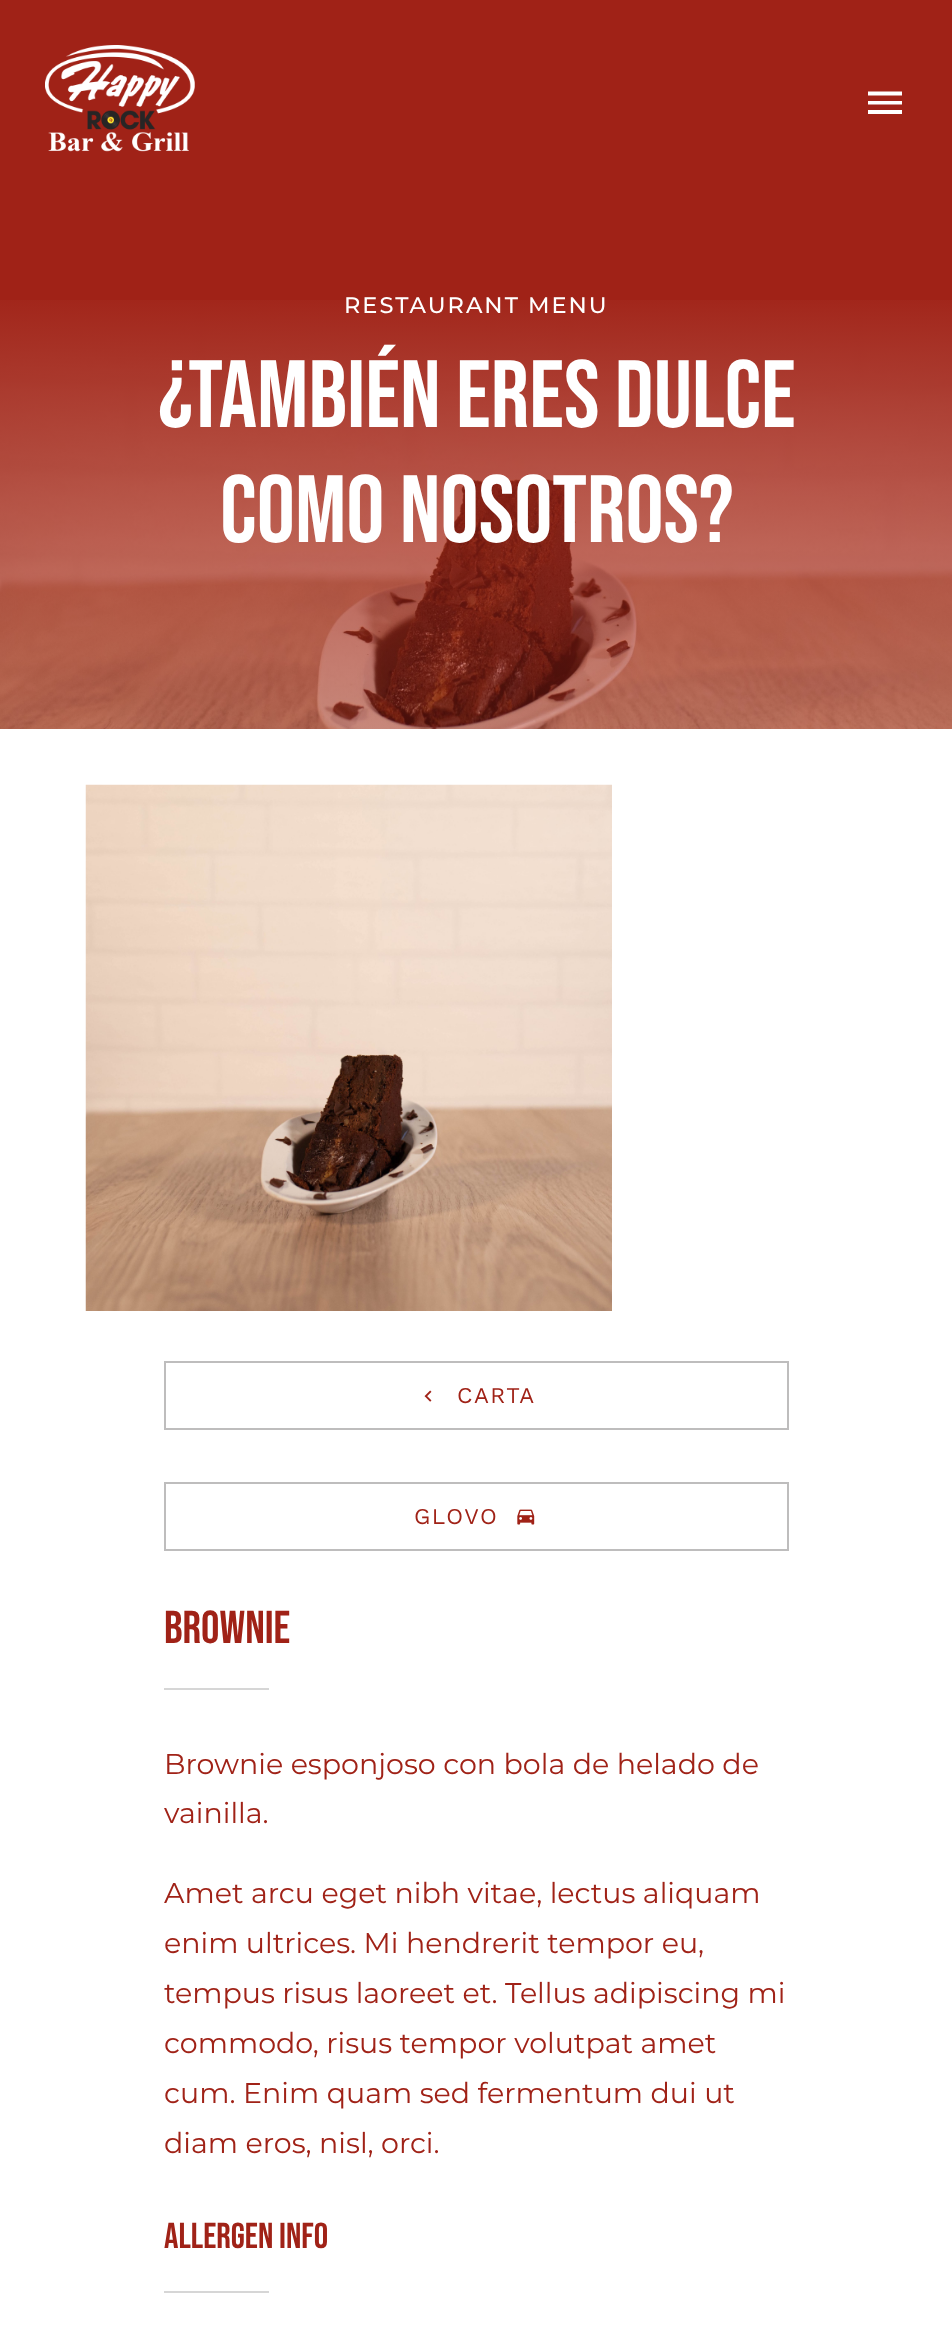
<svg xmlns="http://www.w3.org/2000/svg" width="952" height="2329">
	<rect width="100%" height="100%" fill="#FFFFFF" />
	<rect x="0" y="0" width="952" height="300" fill="#A02217" />
	<image x="45" y="45" width="150" height="107" href="assets/img1.png" />
	<path d="M868 91.5H902V95.5H868ZM868 104.5V101H902V104.5ZM868 114V110H902V114Z" fill="#FFFFFF" />
	<image x="0" y="300" width="952" height="429" href="assets/img2.png" />
	<text x="344" y="313" font-family="Montserrat" font-size="22.5" font-weight="500" letter-spacing="2" fill="#FFFFFF">RESTAURANT MENU</text>
	<g font-family="Bebas Neue" font-size="95.5" fill="#FFFFFF">
		<text x="158" y="427">¿También eres dulce</text>
		<text x="220" y="542">como nosotros?</text>
	</g>
	<image x="85" y="784" width="527" height="527" href="assets/img3.png" />
	<rect x="165" y="1362" width="623" height="67" fill="none" stroke="#BEBDBD" stroke-width="2" />
	<image x="424" y="1390" width="8" height="12" href="assets/img4.png" />
	<text x="457" y="1403" font-family="Work Sans" font-size="22.5" letter-spacing="1.5" fill="#A02217">CARTA</text>
	<rect x="165" y="1483" width="623" height="67" fill="none" stroke="#BEBDBD" stroke-width="2" />
	<text x="414" y="1524" font-family="Work Sans" font-size="22.5" letter-spacing="1.5" fill="#A02217">GLOVO</text>
	<image x="517" y="1509" width="18" height="16" href="assets/img5.png" />
	<text x="164" y="1643" font-family="Bebas Neue" font-size="46" fill="#A02217">Brownie</text>
	<rect x="164" y="1688" width="105" height="2" fill="#D6D6D6" />
	<g font-family="Montserrat" font-size="28.5" fill="#A02217">
		<text x="164" y="1774">Brownie esponjoso con bola de helado de</text>
		<text x="164" y="1823">vainilla.</text>
		<text x="164" y="1903">Amet arcu eget nibh vitae, lectus aliquam</text>
		<text x="164" y="1953">enim ultrices. Mi hendrerit tempor eu,</text>
		<text x="164" y="2003">tempus risus laoreet et. Tellus adipiscing mi</text>
		<text x="164" y="2053">commodo, risus tempor volutpat amet</text>
		<text x="164" y="2103">cum. Enim quam sed fermentum dui ut</text>
		<text x="164" y="2153">diam eros, nisl, orci.</text>
	</g>
	<text x="164" y="2248" font-family="Bebas Neue" font-size="36" fill="#A02217">Allergen Info</text>
	<rect x="164" y="2291" width="105" height="2" fill="#D6D6D6" />
</svg>
